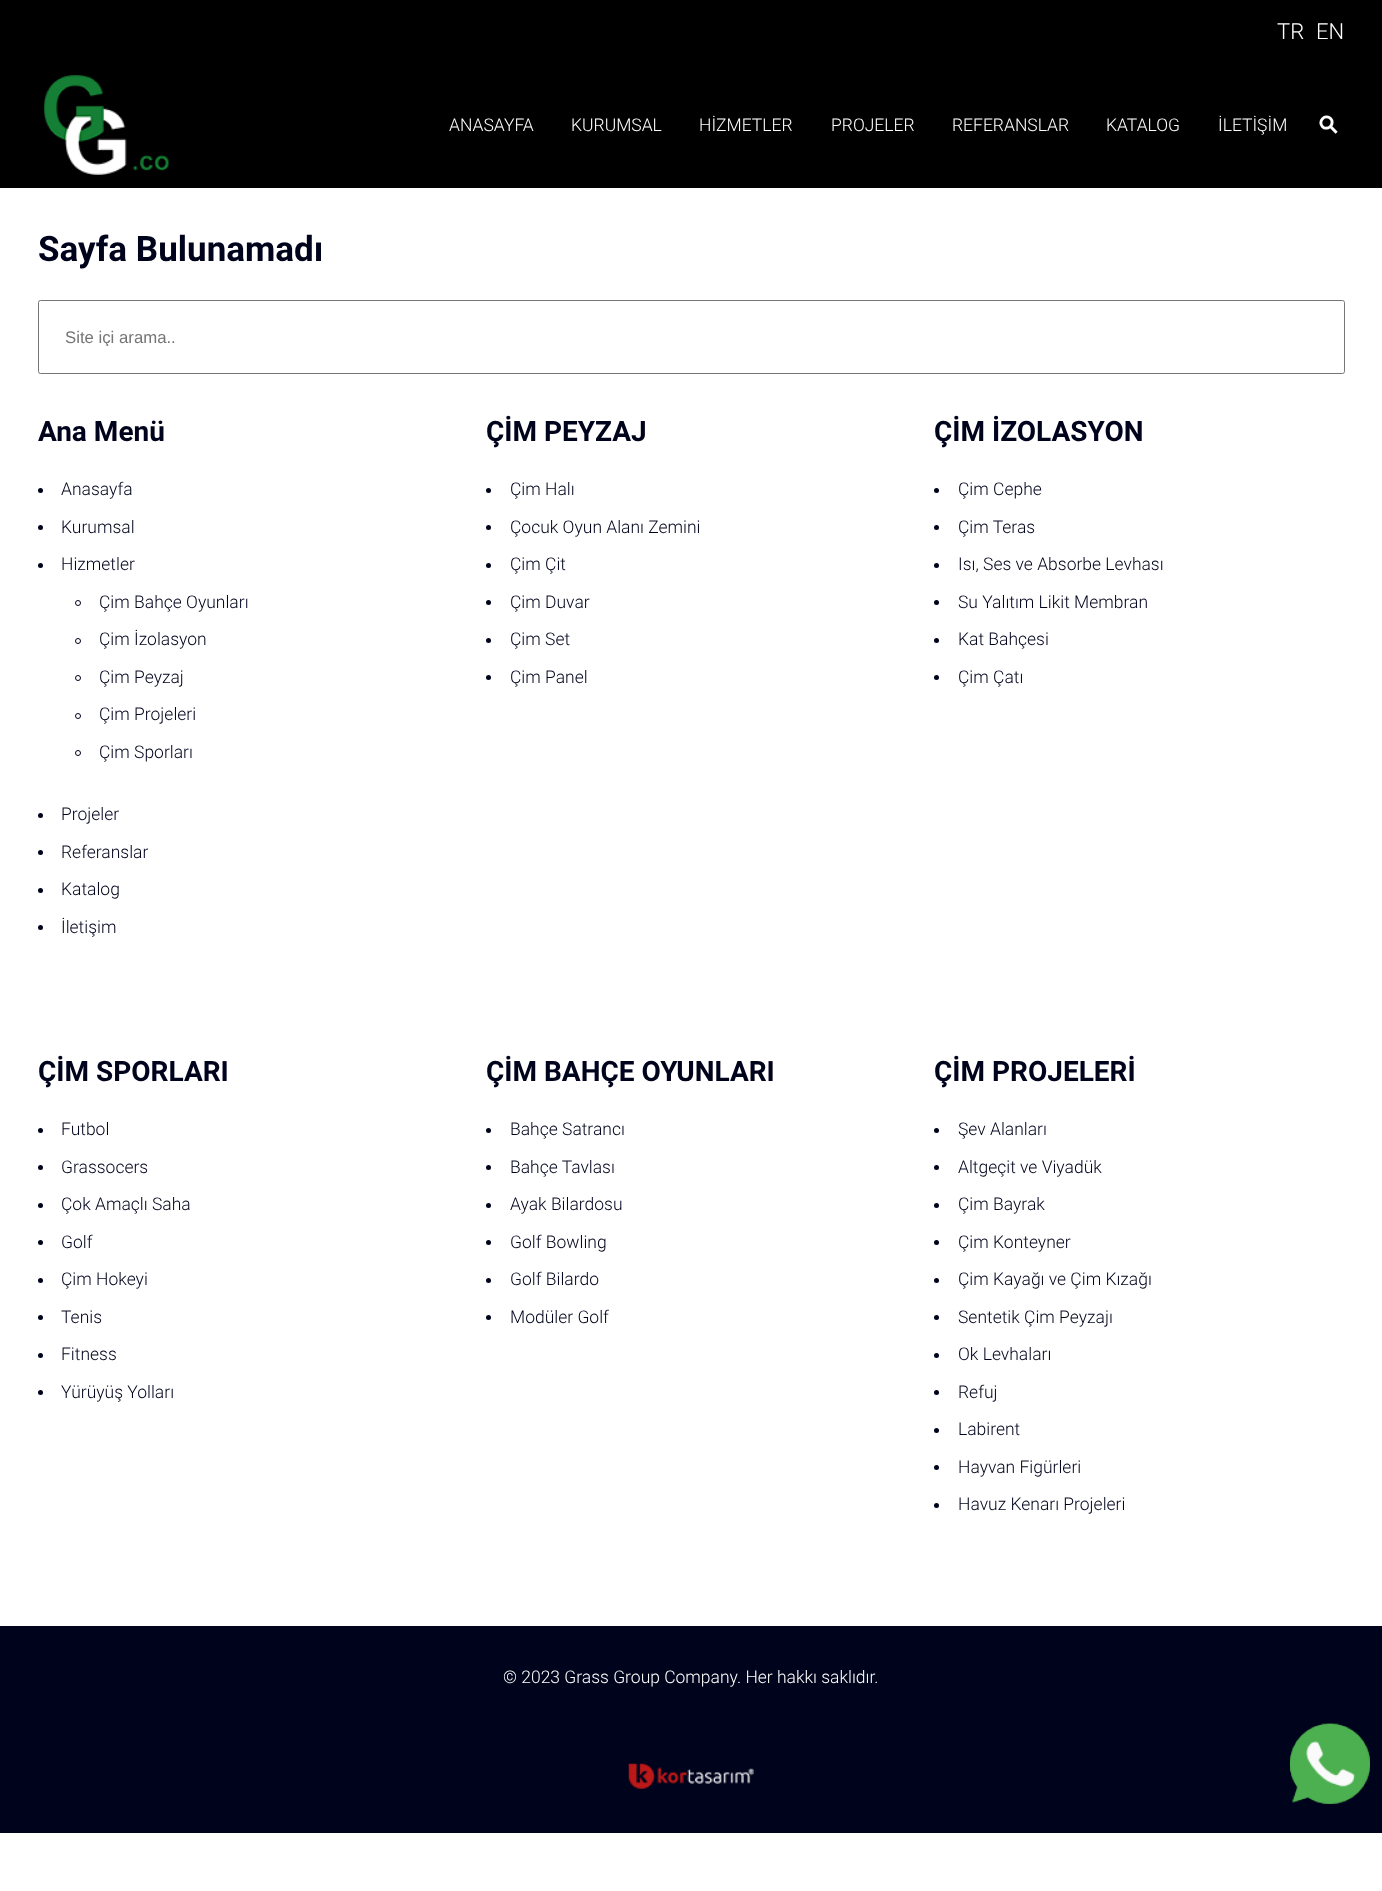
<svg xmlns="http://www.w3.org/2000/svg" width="1382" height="1891">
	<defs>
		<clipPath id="clip1"><rect x="65" y="328" width="1253" height="18" /></clipPath>
	</defs>
	<rect width="100%" height="100%" fill="#FFFFFF" />
	<rect x="0" y="0" width="1382" height="188" fill="#000000" />
	<g font-family="Roboto" font-size="22" font-weight="300" fill="#FFFFFF">
		<text x="1277" y="39">TR</text>
		<text x="1316" y="39">EN</text>
	</g>
	<image x="44" y="75" width="125" height="100" href="assets/img1.png" />
	<g font-family="Roboto" font-size="17.5" font-weight="300" fill="#FFFFFF">
		<text x="449" y="131">ANASAYFA</text>
		<text x="571" y="131">KURUMSAL</text>
		<text x="699" y="131">HİZMETLER</text>
		<text x="831" y="131">PROJELER</text>
		<text x="952" y="131">REFERANSLAR</text>
		<text x="1106" y="131">KATALOG</text>
		<text x="1218" y="131">İLETİŞİM</text>
	</g>
	<text x="1328" y="137" transform="rotate(-45 1328 137)" font-family="DejaVu Sans" font-size="24" font-weight="700" fill="#FFFFFF">⚲</text>
	<text x="38" y="261" font-family="Roboto" font-size="35" font-weight="700" fill="#00031C">Sayfa Bulunamadı</text>
	<rect x="38.5" y="300.5" width="1306" height="73" rx="2" fill="none" stroke="#767676" />
	<g clip-path="url(#clip1)">
		<text x="65" y="343" font-family="Liberation Sans" font-size="16.75" fill="#757575">Site içi arama..</text>
	</g>
	<text x="38" y="441" font-family="Roboto" font-size="28" font-weight="700" fill="#00031C">Ana Menü</text>
	<circle cx="40.5" cy="490.5" r="2.5" fill="#00031C" />
	<text x="61" y="495" font-family="Roboto" font-size="17.5" font-weight="300" fill="#00031C">Anasayfa</text>
	<circle cx="40.5" cy="527.5" r="2.5" fill="#00031C" />
	<text x="61" y="533" font-family="Roboto" font-size="17.5" font-weight="300" fill="#00031C">Kurumsal</text>
	<circle cx="40.5" cy="565.5" r="2.5" fill="#00031C" />
	<text x="61" y="570" font-family="Roboto" font-size="17.5" font-weight="300" fill="#00031C">Hizmetler</text>
	<circle cx="78" cy="603" r="2.5" fill="none" stroke="#00031C" />
	<text x="99" y="608" font-family="Roboto" font-size="17.5" font-weight="300" fill="#00031C">Çim Bahçe Oyunları</text>
	<circle cx="78" cy="641" r="2.5" fill="none" stroke="#00031C" />
	<text x="99" y="645" font-family="Roboto" font-size="17.5" font-weight="300" fill="#00031C">Çim İzolasyon</text>
	<circle cx="78" cy="678" r="2.5" fill="none" stroke="#00031C" />
	<text x="99" y="683" font-family="Roboto" font-size="17.5" font-weight="300" fill="#00031C">Çim Peyzaj</text>
	<circle cx="78" cy="716" r="2.5" fill="none" stroke="#00031C" />
	<text x="99" y="720" font-family="Roboto" font-size="17.5" font-weight="300" fill="#00031C">Çim Projeleri</text>
	<circle cx="78" cy="753" r="2.5" fill="none" stroke="#00031C" />
	<text x="99" y="758" font-family="Roboto" font-size="17.5" font-weight="300" fill="#00031C">Çim Sporları</text>
	<circle cx="40.5" cy="815.5" r="2.5" fill="#00031C" />
	<text x="61" y="820" font-family="Roboto" font-size="17.5" font-weight="300" fill="#00031C">Projeler</text>
	<circle cx="40.5" cy="852.5" r="2.5" fill="#00031C" />
	<text x="61" y="858" font-family="Roboto" font-size="17.5" font-weight="300" fill="#00031C">Referanslar</text>
	<circle cx="40.5" cy="890.5" r="2.5" fill="#00031C" />
	<text x="61" y="895" font-family="Roboto" font-size="17.5" font-weight="300" fill="#00031C">Katalog</text>
	<circle cx="40.5" cy="927.5" r="2.5" fill="#00031C" />
	<text x="61" y="933" font-family="Roboto" font-size="17.5" font-weight="300" fill="#00031C">İletişim</text>
	<text x="486" y="441" font-family="Roboto" font-size="28" font-weight="700" fill="#00031C">ÇİM PEYZAJ</text>
	<circle cx="488.5" cy="490.5" r="2.5" fill="#00031C" />
	<text x="510" y="495" font-family="Roboto" font-size="17.5" font-weight="300" fill="#00031C">Çim Halı</text>
	<circle cx="488.5" cy="527.5" r="2.5" fill="#00031C" />
	<text x="510" y="533" font-family="Roboto" font-size="17.5" font-weight="300" fill="#00031C">Çocuk Oyun Alanı Zemini</text>
	<circle cx="488.5" cy="565.5" r="2.5" fill="#00031C" />
	<text x="510" y="570" font-family="Roboto" font-size="17.5" font-weight="300" fill="#00031C">Çim Çit</text>
	<circle cx="488.5" cy="602.5" r="2.5" fill="#00031C" />
	<text x="510" y="608" font-family="Roboto" font-size="17.5" font-weight="300" fill="#00031C">Çim Duvar</text>
	<circle cx="488.5" cy="640.5" r="2.5" fill="#00031C" />
	<text x="510" y="645" font-family="Roboto" font-size="17.5" font-weight="300" fill="#00031C">Çim Set</text>
	<circle cx="488.5" cy="677.5" r="2.5" fill="#00031C" />
	<text x="510" y="683" font-family="Roboto" font-size="17.5" font-weight="300" fill="#00031C">Çim Panel</text>
	<text x="934" y="441" font-family="Roboto" font-size="28" font-weight="700" fill="#00031C">ÇİM İZOLASYON</text>
	<circle cx="936.5" cy="490.5" r="2.5" fill="#00031C" />
	<text x="958" y="495" font-family="Roboto" font-size="17.5" font-weight="300" fill="#00031C">Çim Cephe</text>
	<circle cx="936.5" cy="527.5" r="2.5" fill="#00031C" />
	<text x="958" y="533" font-family="Roboto" font-size="17.5" font-weight="300" fill="#00031C">Çim Teras</text>
	<circle cx="936.5" cy="565.5" r="2.5" fill="#00031C" />
	<text x="958" y="570" font-family="Roboto" font-size="17.5" font-weight="300" fill="#00031C">Isı, Ses ve Absorbe Levhası</text>
	<circle cx="936.5" cy="602.5" r="2.5" fill="#00031C" />
	<text x="958" y="608" font-family="Roboto" font-size="17.5" font-weight="300" fill="#00031C">Su Yalıtım Likit Membran</text>
	<circle cx="936.5" cy="640.5" r="2.5" fill="#00031C" />
	<text x="958" y="645" font-family="Roboto" font-size="17.5" font-weight="300" fill="#00031C">Kat Bahçesi</text>
	<circle cx="936.5" cy="677.5" r="2.5" fill="#00031C" />
	<text x="958" y="683" font-family="Roboto" font-size="17.5" font-weight="300" fill="#00031C">Çim Çatı</text>
	<text x="38" y="1081" font-family="Roboto" font-size="28" font-weight="700" fill="#00031C">ÇİM SPORLARI</text>
	<circle cx="40.5" cy="1130.5" r="2.5" fill="#00031C" />
	<text x="61" y="1135" font-family="Roboto" font-size="17.5" font-weight="300" fill="#00031C">Futbol</text>
	<circle cx="40.5" cy="1167.5" r="2.5" fill="#00031C" />
	<text x="61" y="1173" font-family="Roboto" font-size="17.5" font-weight="300" fill="#00031C">Grassocers</text>
	<circle cx="40.5" cy="1205.5" r="2.5" fill="#00031C" />
	<text x="61" y="1210" font-family="Roboto" font-size="17.5" font-weight="300" fill="#00031C">Çok Amaçlı Saha</text>
	<circle cx="40.5" cy="1242.5" r="2.5" fill="#00031C" />
	<text x="61" y="1248" font-family="Roboto" font-size="17.5" font-weight="300" fill="#00031C">Golf</text>
	<circle cx="40.5" cy="1280.5" r="2.5" fill="#00031C" />
	<text x="61" y="1285" font-family="Roboto" font-size="17.5" font-weight="300" fill="#00031C">Çim Hokeyi</text>
	<circle cx="40.5" cy="1317.5" r="2.5" fill="#00031C" />
	<text x="61" y="1323" font-family="Roboto" font-size="17.5" font-weight="300" fill="#00031C">Tenis</text>
	<circle cx="40.5" cy="1355.5" r="2.5" fill="#00031C" />
	<text x="61" y="1360" font-family="Roboto" font-size="17.5" font-weight="300" fill="#00031C">Fitness</text>
	<circle cx="40.5" cy="1392.5" r="2.5" fill="#00031C" />
	<text x="61" y="1398" font-family="Roboto" font-size="17.5" font-weight="300" fill="#00031C">Yürüyüş Yolları</text>
	<text x="486" y="1081" font-family="Roboto" font-size="28" font-weight="700" fill="#00031C">ÇİM BAHÇE OYUNLARI</text>
	<circle cx="488.5" cy="1130.5" r="2.5" fill="#00031C" />
	<text x="510" y="1135" font-family="Roboto" font-size="17.5" font-weight="300" fill="#00031C">Bahçe Satrancı</text>
	<circle cx="488.5" cy="1167.5" r="2.5" fill="#00031C" />
	<text x="510" y="1173" font-family="Roboto" font-size="17.5" font-weight="300" fill="#00031C">Bahçe Tavlası</text>
	<circle cx="488.5" cy="1205.5" r="2.5" fill="#00031C" />
	<text x="510" y="1210" font-family="Roboto" font-size="17.5" font-weight="300" fill="#00031C">Ayak Bilardosu</text>
	<circle cx="488.5" cy="1242.5" r="2.5" fill="#00031C" />
	<text x="510" y="1248" font-family="Roboto" font-size="17.5" font-weight="300" fill="#00031C">Golf Bowling</text>
	<circle cx="488.5" cy="1280.5" r="2.5" fill="#00031C" />
	<text x="510" y="1285" font-family="Roboto" font-size="17.5" font-weight="300" fill="#00031C">Golf Bilardo</text>
	<circle cx="488.5" cy="1317.5" r="2.5" fill="#00031C" />
	<text x="510" y="1323" font-family="Roboto" font-size="17.5" font-weight="300" fill="#00031C">Modüler Golf</text>
	<text x="934" y="1081" font-family="Roboto" font-size="28" font-weight="700" fill="#00031C">ÇİM PROJELERİ</text>
	<circle cx="936.5" cy="1130.5" r="2.5" fill="#00031C" />
	<text x="958" y="1135" font-family="Roboto" font-size="17.5" font-weight="300" fill="#00031C">Şev Alanları</text>
	<circle cx="936.5" cy="1167.5" r="2.5" fill="#00031C" />
	<text x="958" y="1173" font-family="Roboto" font-size="17.5" font-weight="300" fill="#00031C">Altgeçit ve Viyadük</text>
	<circle cx="936.5" cy="1205.5" r="2.5" fill="#00031C" />
	<text x="958" y="1210" font-family="Roboto" font-size="17.5" font-weight="300" fill="#00031C">Çim Bayrak</text>
	<circle cx="936.5" cy="1242.5" r="2.5" fill="#00031C" />
	<text x="958" y="1248" font-family="Roboto" font-size="17.5" font-weight="300" fill="#00031C">Çim Konteyner</text>
	<circle cx="936.5" cy="1280.5" r="2.5" fill="#00031C" />
	<text x="958" y="1285" font-family="Roboto" font-size="17.5" font-weight="300" fill="#00031C">Çim Kayağı ve Çim Kızağı</text>
	<circle cx="936.5" cy="1317.5" r="2.5" fill="#00031C" />
	<text x="958" y="1323" font-family="Roboto" font-size="17.5" font-weight="300" fill="#00031C">Sentetik Çim Peyzajı</text>
	<circle cx="936.5" cy="1355.5" r="2.5" fill="#00031C" />
	<text x="958" y="1360" font-family="Roboto" font-size="17.5" font-weight="300" fill="#00031C">Ok Levhaları</text>
	<circle cx="936.5" cy="1392.5" r="2.5" fill="#00031C" />
	<text x="958" y="1398" font-family="Roboto" font-size="17.5" font-weight="300" fill="#00031C">Refuj</text>
	<circle cx="936.5" cy="1430.5" r="2.5" fill="#00031C" />
	<text x="958" y="1435" font-family="Roboto" font-size="17.5" font-weight="300" fill="#00031C">Labirent</text>
	<circle cx="936.5" cy="1467.5" r="2.5" fill="#00031C" />
	<text x="958" y="1473" font-family="Roboto" font-size="17.5" font-weight="300" fill="#00031C">Hayvan Figürleri</text>
	<circle cx="936.5" cy="1505.5" r="2.5" fill="#00031C" />
	<text x="958" y="1510" font-family="Roboto" font-size="17.5" font-weight="300" fill="#00031C">Havuz Kenarı Projeleri</text>
	<rect x="0" y="1626" width="1382" height="207" fill="#00031C" />
	<text x="503" y="1683" font-family="Roboto" font-size="17.5" font-weight="300" fill="#FFFFFF">© 2023 Grass Group Company. Her hakkı saklıdır.</text>
	<image x="628" y="1763" width="126" height="26" href="assets/img2.png" />
	<image x="1290" y="1723" width="80" height="81" href="assets/img3.png" />
	<image x="1290" y="1723" width="80" height="81" href="assets/img4.png" />
</svg>
